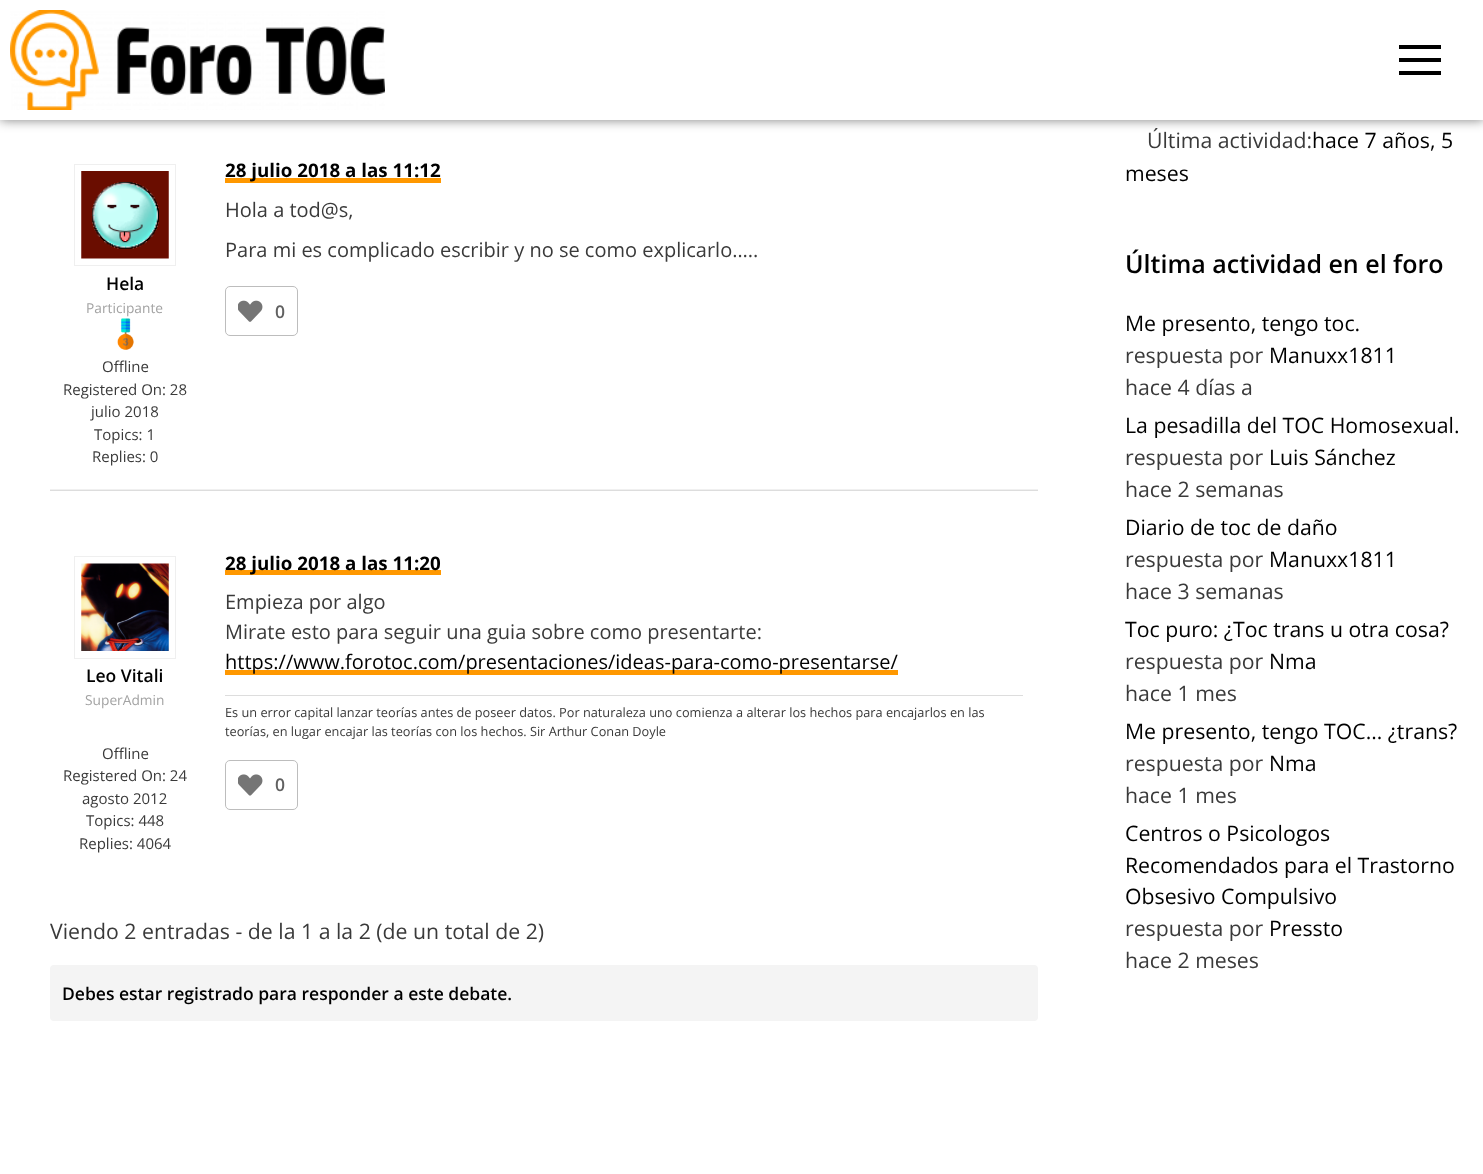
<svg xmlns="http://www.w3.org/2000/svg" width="1483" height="1174">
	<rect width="100%" height="100%" fill="#FFFFFF" />
	<rect x="0" y="0" width="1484" height="120" fill="#000000" fill-opacity="0.5" filter="blur(6px)" />
	<rect x="0" y="0" width="1483" height="120" fill="#FFFFFF" />
	<image x="10" y="10" width="375" height="100" href="assets/img1.png" />
	<path d="M1399 45V49H1441V45ZM1399 58V62H1441V58ZM1399 71V75H1441V71Z" fill="#000000" />
	<rect x="50" y="489" width="988" height="1" fill="#F0F0F0" />
	<rect x="225" y="178" width="216" height="5" fill="#FF9800" />
	<text x="225" y="177" font-family="Open Sans" font-size="18.75" font-weight="700" fill="#000000">28 julio 2018 a las 11:12</text>
	<g font-family="Open Sans" font-size="20" fill="#3A3A3A">
		<text x="225" y="217">Hola a tod@s,</text>
		<text x="225" y="257">Para mi es complicado escribir y no se como explicarlo…..</text>
	</g>
	<rect x="225.5" y="286.5" width="72" height="49" rx="4.5" fill="none" stroke="#BDBDBD" />
	<image x="238" y="300" width="25" height="22" href="assets/img2.png" />
	<text x="275" y="318" font-family="Open Sans" font-size="17.5" font-weight="600" fill="#616161">0</text>
	<rect x="74.5" y="164.5" width="101" height="101" fill="none" stroke="#EFEFEF" />
	<image x="81" y="171" width="88" height="88" href="assets/img3.png" />
	<text x="106" y="290" font-family="Open Sans" font-size="17.5" font-weight="600" fill="#000000">Hela</text>
	<text x="86" y="313" font-family="Open Sans" font-size="13.75" fill="#A3A3A3">Participante</text>
	<image x="117" y="318" width="17" height="32" href="assets/img4.png" />
	<g font-family="Open Sans" font-size="15" fill="#3A3A3A">
		<text x="102" y="372">Offline</text>
		<text x="63" y="395">Registered On: 28</text>
		<text x="91" y="417">julio 2018</text>
		<text x="94" y="440">Topics: 1</text>
		<text x="92" y="462">Replies: 0</text>
	</g>
	<rect x="50" y="490" width="988" height="1" fill="#DDDDDD" />
	<rect x="74.5" y="556.5" width="101" height="102" fill="none" stroke="#EFEFEF" />
	<image x="81" y="563" width="88" height="88" href="assets/img5.png" />
	<text x="86" y="682" font-family="Open Sans" font-size="17.5" font-weight="600" fill="#000000">Leo Vitali</text>
	<text x="85" y="705" font-family="Open Sans" font-size="13.75" fill="#A3A3A3">SuperAdmin</text>
	<g font-family="Open Sans" font-size="15" fill="#3A3A3A">
		<text x="102" y="759">Offline</text>
		<text x="63" y="781">Registered On: 24</text>
		<text x="82" y="804">agosto 2012</text>
		<text x="86" y="826">Topics: 448</text>
		<text x="79" y="849">Replies: 4064</text>
	</g>
	<rect x="225" y="570" width="216" height="5" fill="#FF9800" />
	<text x="225" y="570" font-family="Open Sans" font-size="18.75" font-weight="700" fill="#000000">28 julio 2018 a las 11:20</text>
	<g font-family="Open Sans" font-size="20" fill="#3A3A3A">
		<text x="225" y="609">Empieza por algo</text>
		<text x="225" y="639">Mirate esto para seguir una guia sobre como presentarte:</text>
	</g>
	<rect x="225" y="670" width="673" height="5" fill="#FF9800" />
	<text x="225" y="669" font-family="Open Sans" font-size="20" fill="#000000">https://www.forotoc.com/presentaciones/ideas-para-como-presentarse/</text>
	<rect x="225" y="695" width="798" height="1" fill="#DDDDDD" />
	<g font-family="Open Sans" font-size="12.75" fill="#3A3A3A">
		<text x="225" y="717">Es un error capital lanzar teorías antes de poseer datos. Por naturaleza uno comienza a alterar los hechos para encajarlos en las</text>
		<text x="225" y="736">teorías, en lugar encajar las teorías con los hechos. Sir Arthur Conan Doyle</text>
	</g>
	<rect x="225.5" y="760.5" width="72" height="49" rx="4.5" fill="none" stroke="#BDBDBD" />
	<image x="238" y="774" width="25" height="22" href="assets/img6.png" />
	<text x="275" y="791" font-family="Open Sans" font-size="17.5" font-weight="600" fill="#616161">0</text>
	<text x="50" y="939" font-family="Open Sans" font-size="21.25" fill="#3A3A3A">Viendo 2 entradas - de la 1 a la 2 (de un total de 2)</text>
	<rect x="50" y="965" width="988" height="56" rx="4" fill="#F4F4F4" />
	<text x="62" y="1000" font-family="Open Sans" font-size="17.5" font-weight="600" fill="#000000">Debes estar registrado para responder a este debate.</text>
	<text x="1147" y="148" font-family="Open Sans" font-size="21.25" fill="#3A3A3A">Última actividad:</text>
	<g font-family="Open Sans" font-size="21.25" fill="#000000">
		<text x="1312" y="148">hace 7 años, 5</text>
		<text x="1125" y="181">meses</text>
	</g>
	<text x="1125" y="273" font-family="Open Sans" font-size="25" font-weight="600" fill="#000000">Última actividad en el foro</text>
	<text x="1125" y="331" font-family="Open Sans" font-size="21.25" fill="#000000">Me presento, tengo toc.</text>
	<text x="1125" y="363" font-family="Open Sans" font-size="21.25" fill="#3A3A3A">respuesta por</text>
	<text x="1269" y="363" font-family="Open Sans" font-size="21.25" fill="#000000">Manuxx1811</text>
	<text x="1125" y="395" font-family="Open Sans" font-size="21.25" fill="#3A3A3A">hace 4 días a</text>
	<text x="1125" y="433" font-family="Open Sans" font-size="21.25" fill="#000000">La pesadilla del TOC Homosexual.</text>
	<text x="1125" y="465" font-family="Open Sans" font-size="21.25" fill="#3A3A3A">respuesta por</text>
	<text x="1269" y="465" font-family="Open Sans" font-size="21.25" fill="#000000">Luis Sánchez</text>
	<text x="1125" y="497" font-family="Open Sans" font-size="21.25" fill="#3A3A3A">hace 2 semanas</text>
	<text x="1125" y="535" font-family="Open Sans" font-size="21.25" fill="#000000">Diario de toc de daño</text>
	<text x="1125" y="567" font-family="Open Sans" font-size="21.25" fill="#3A3A3A">respuesta por</text>
	<text x="1269" y="567" font-family="Open Sans" font-size="21.25" fill="#000000">Manuxx1811</text>
	<text x="1125" y="599" font-family="Open Sans" font-size="21.25" fill="#3A3A3A">hace 3 semanas</text>
	<text x="1125" y="637" font-family="Open Sans" font-size="21.25" fill="#000000">Toc puro: ¿Toc trans u otra cosa?</text>
	<text x="1125" y="669" font-family="Open Sans" font-size="21.25" fill="#3A3A3A">respuesta por</text>
	<text x="1269" y="669" font-family="Open Sans" font-size="21.25" fill="#000000">Nma</text>
	<text x="1125" y="701" font-family="Open Sans" font-size="21.25" fill="#3A3A3A">hace 1 mes</text>
	<text x="1125" y="739" font-family="Open Sans" font-size="21.25" fill="#000000">Me presento, tengo TOC… ¿trans?</text>
	<text x="1125" y="771" font-family="Open Sans" font-size="21.25" fill="#3A3A3A">respuesta por</text>
	<text x="1269" y="771" font-family="Open Sans" font-size="21.25" fill="#000000">Nma</text>
	<text x="1125" y="803" font-family="Open Sans" font-size="21.25" fill="#3A3A3A">hace 1 mes</text>
	<g font-family="Open Sans" font-size="21.25" fill="#000000">
		<text x="1125" y="841">Centros o Psicologos</text>
		<text x="1125" y="873">Recomendados para el Trastorno</text>
		<text x="1125" y="904">Obsesivo Compulsivo</text>
	</g>
	<text x="1125" y="936" font-family="Open Sans" font-size="21.25" fill="#3A3A3A">respuesta por</text>
	<text x="1269" y="936" font-family="Open Sans" font-size="21.25" fill="#000000">Pressto</text>
	<text x="1125" y="968" font-family="Open Sans" font-size="21.25" fill="#3A3A3A">hace 2 meses</text>
</svg>
